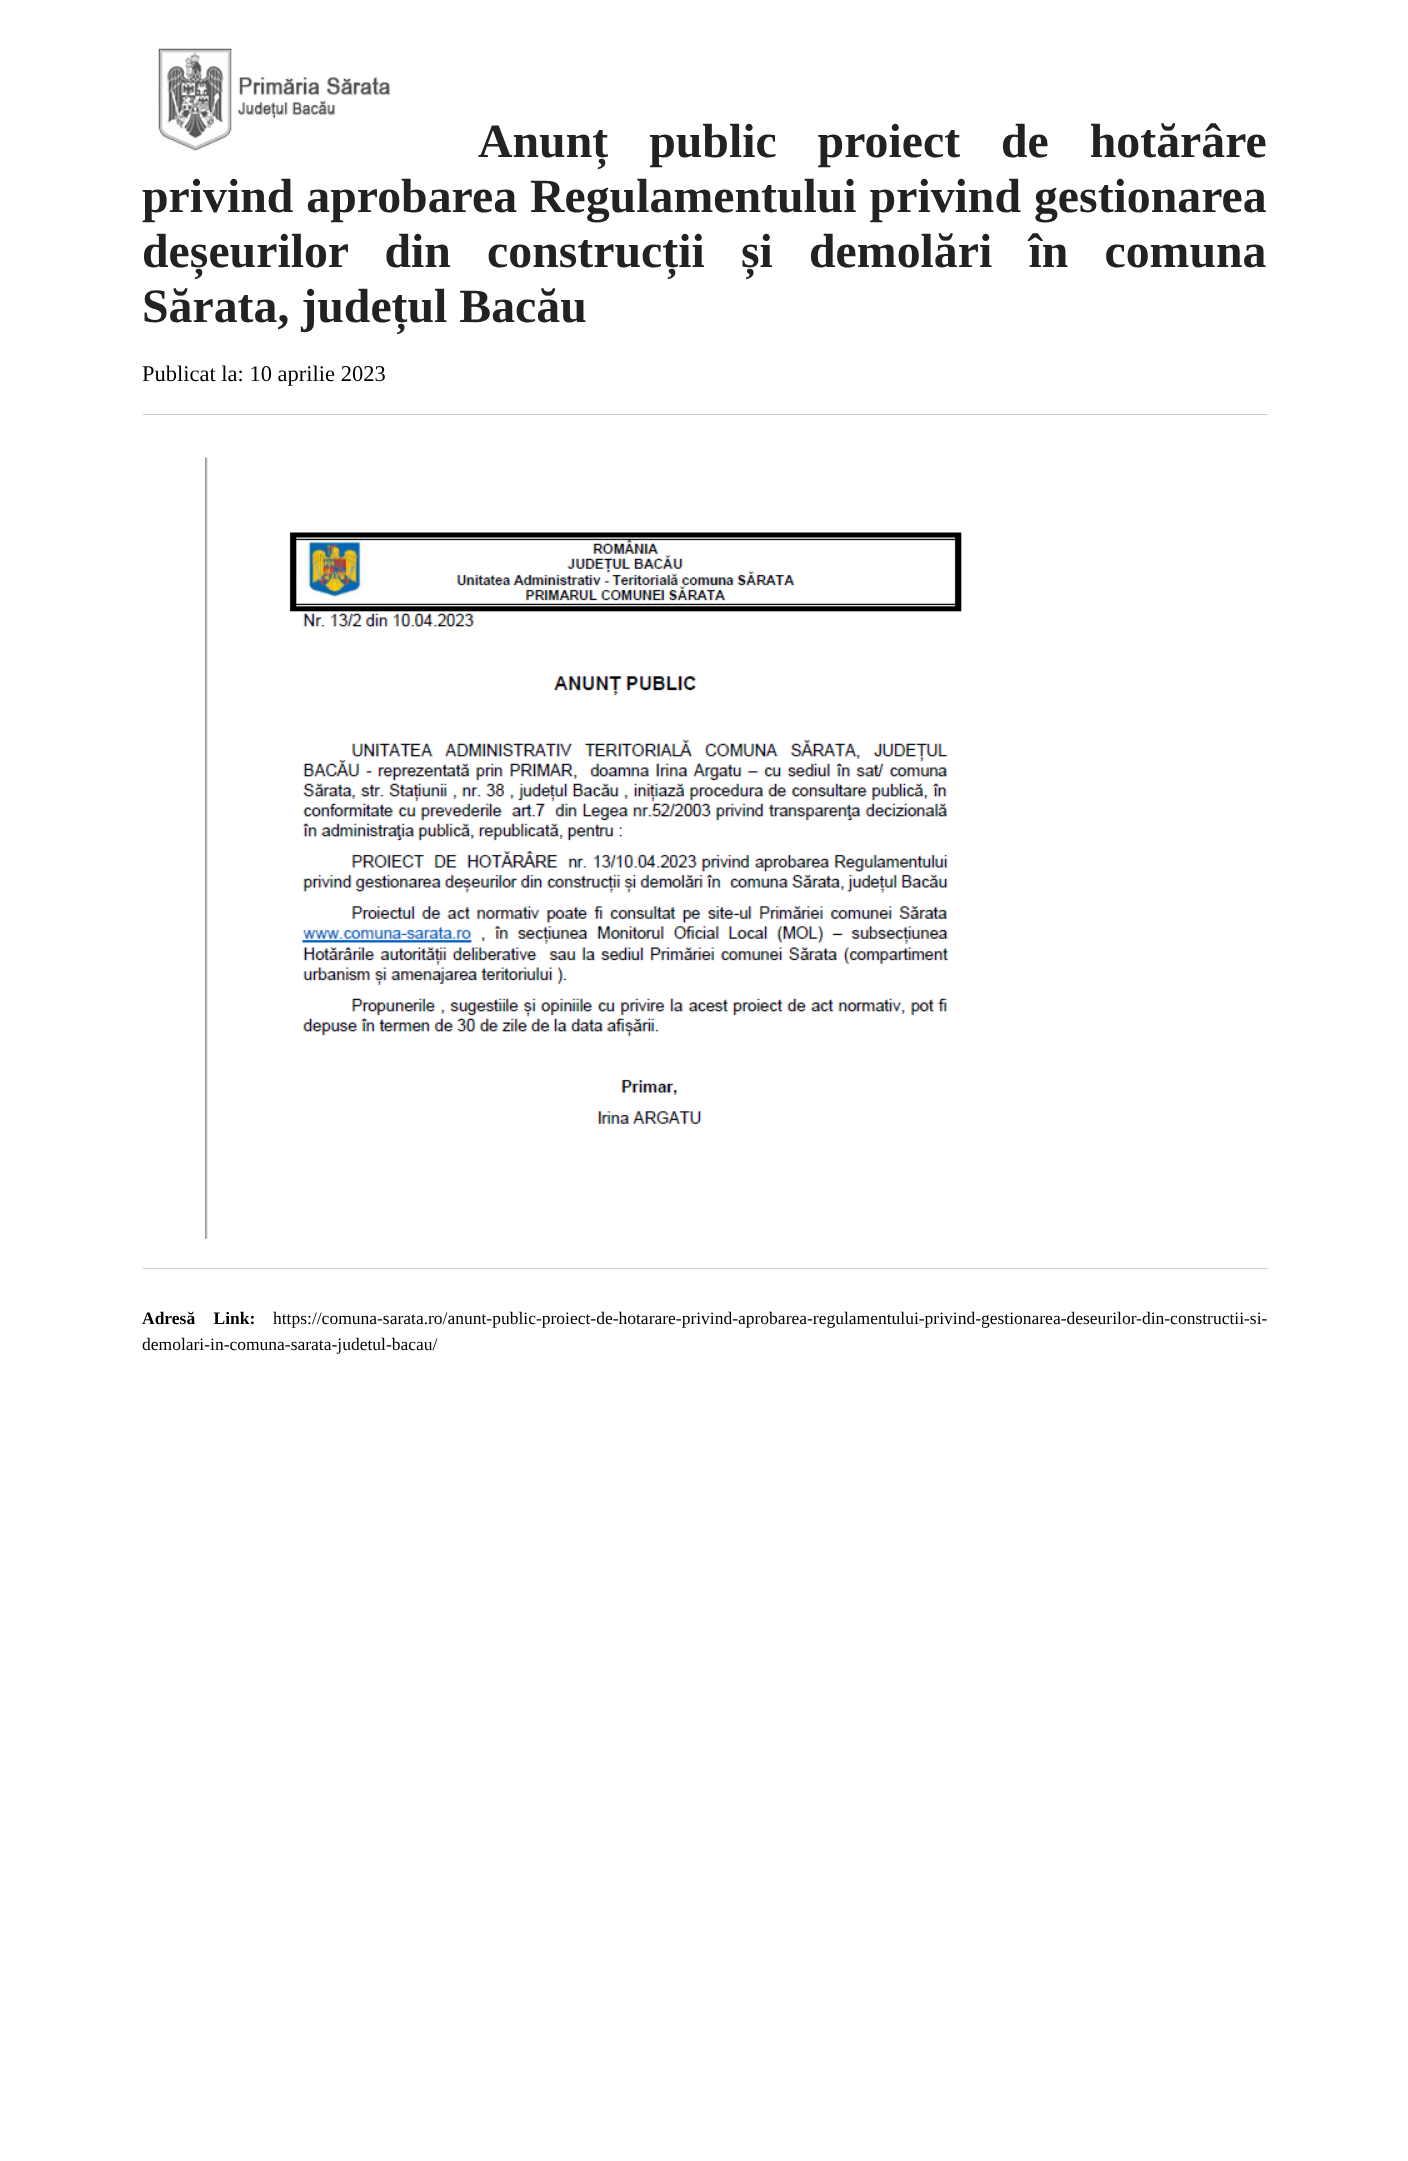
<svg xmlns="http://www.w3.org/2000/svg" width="1408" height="2161">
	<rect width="100%" height="100%" fill="#FFFFFF" />
	<image x="158" y="48" width="233" height="103" href="assets/img1.png" />
	<g font-family="Liberation Serif" font-size="47.8" font-weight="700" fill="#222222">
		<text x="478" y="157" word-spacing="29">Anunț public proiect de hotărâre</text>
		<text x="142" y="212" word-spacing="1">privind aprobarea Regulamentului privind gestionarea</text>
		<text x="142" y="267" word-spacing="24.25">deșeurilor din construcții și demolări în comuna</text>
		<text x="142" y="322">Sărata, județul Bacău</text>
	</g>
	<text x="142" y="381" font-family="Liberation Serif" font-size="22.5" fill="#000000">Publicat la: 10 aprilie 2023</text>
	<rect x="143" y="414" width="1125" height="1" fill="#CCCCCC" />
	<image x="205" y="457" width="757" height="782" href="assets/img2.png" />
	<rect x="143" y="1268" width="1125" height="1" fill="#CCCCCC" />
	<text x="142" y="1324" word-spacing="14" font-family="Liberation Serif" font-size="17.5" font-weight="700" fill="#000000">Adresă Link:</text>
	<g font-family="Liberation Serif" font-size="17.5" fill="#000000">
		<text x="273" y="1324">https://comuna-sarata.ro/anunt-public-proiect-de-hotarare-privind-aprobarea-regulamentului-privind-gestionarea-deseurilor-din-constructii-si-</text>
		<text x="142" y="1350">demolari-in-comuna-sarata-judetul-bacau/</text>
	</g>
</svg>
